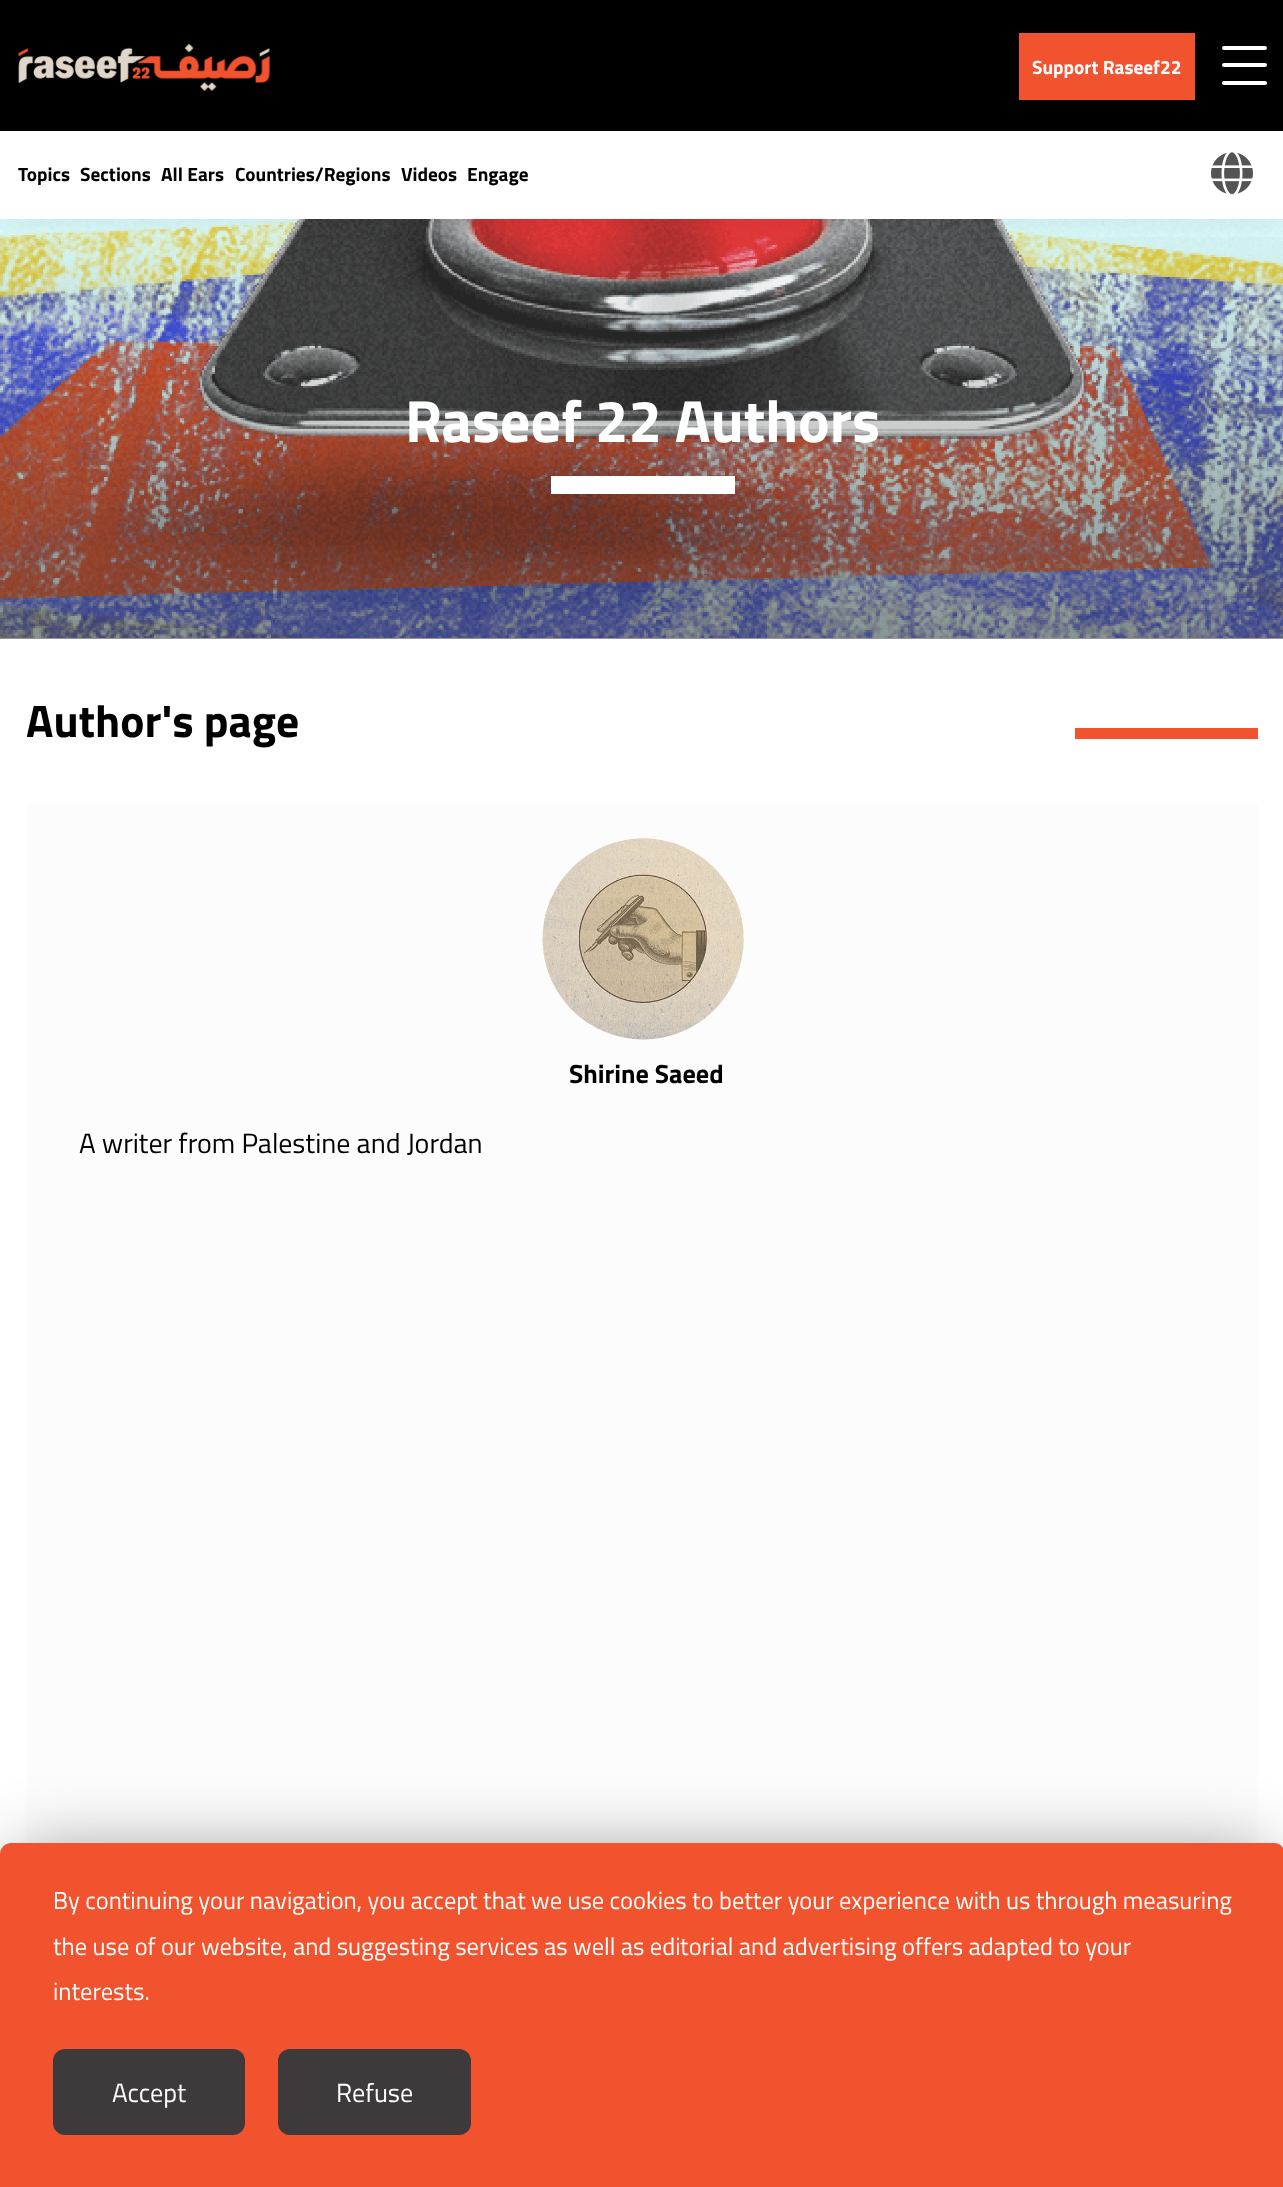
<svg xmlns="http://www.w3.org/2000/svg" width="1283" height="2187">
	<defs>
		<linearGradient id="g1" gradientUnits="userSpaceOnUse" x1="0" y1="219" x2="0" y2="639"><stop offset="0" stop-color="#313131" stop-opacity="0" /><stop offset="1" stop-color="#313131" stop-opacity="0.5" /></linearGradient>
	</defs>
	<rect width="100%" height="100%" fill="#FFFFFF" />
	<image x="0" y="219" width="1283" height="420" href="assets/img3.png" />
	<rect x="0" y="237" width="1283" height="402" fill="url(#g1)" />
	<rect x="0" y="5" width="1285" height="219" fill="#000000" fill-opacity="0.08" filter="blur(17.5px)" />
	<rect x="0" y="0" width="1283" height="131" fill="#000000" />
	<image x="18" y="43" width="252" height="48" href="assets/img1.png" />
	<rect x="1019" y="33" width="176" height="67" fill="#F0532D" />
	<text x="1032" y="74" font-family="Cairo" font-size="19.25" font-weight="700" fill="#FFFFFF">Support Raseef22</text>
	<rect x="1222" y="63" width="45" height="4" rx="2" fill="#FFFFFF" />
	<rect x="1222" y="46" width="45" height="4" rx="2" fill="#FFFFFF" />
	<rect x="1222" y="81" width="45" height="4" rx="2" fill="#FFFFFF" />
	<rect x="0" y="131" width="1283" height="88" fill="#FFFFFF" />
	<g font-family="Cairo" font-size="19.25" font-weight="700" fill="#000000">
		<text x="18" y="181">Topics</text>
		<text x="80" y="181">Sections</text>
		<text x="161" y="181">All Ears</text>
		<text x="235" y="181">Countries/Regions</text>
		<text x="401" y="181">Videos</text>
		<text x="467" y="181">Engage</text>
	</g>
	<image x="1211" y="152" width="42" height="43" href="assets/img2.png" />
	<text x="405" y="442" font-family="Cairo" font-size="59.5" font-weight="700" fill="#FFFFFF">Raseef 22 Authors</text>
	<rect x="551" y="476" width="184" height="18" fill="#FFFFFF" />
	<text x="26" y="737" font-family="Cairo" font-size="45.5" font-weight="700" fill="#000000">Author's page</text>
	<rect x="1075" y="728" width="183" height="11" fill="#F0532D" />
	<rect x="26" y="803" width="1232" height="1040" fill="#FCFCFC" />
	<image x="542" y="838" width="202" height="202" href="assets/img4.png" />
	<text x="569" y="1083" font-family="Cairo" font-size="26.25" font-weight="700" fill="#000000">Shirine Saeed</text>
	<text x="79" y="1153" font-family="Cairo" font-size="28" fill="#000000">A writer from Palestine and Jordan</text>
	<rect x="18" y="1860" width="1249" height="310" fill="#000000" fill-opacity="0.5" filter="blur(37.5px)" />
	<path d="M11 1843H1274C1280 1843 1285 1848 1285 1854V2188H0V1854C0 1848 5 1843 11 1843Z" fill="#F0532D" />
	<g font-family="Cairo" font-size="24.5" fill="#FFFFFF">
		<text x="53" y="1909">By continuing your navigation, you accept that we use cookies to better your experience with us through measuring</text>
		<text x="53" y="1955">the use of our website, and suggesting services as well as editorial and advertising offers adapted to your</text>
		<text x="53" y="2000">interests.</text>
	</g>
	<rect x="53" y="2049" width="192" height="86" rx="12" fill="#3E3A3B" />
	<text x="112" y="2102" font-family="Cairo" font-size="26.25" fill="#FFFFFF">Accept</text>
	<rect x="278" y="2049" width="193" height="86" rx="12" fill="#3E3A3B" />
	<text x="336" y="2102" font-family="Cairo" font-size="26.25" fill="#FFFFFF">Refuse</text>
</svg>
